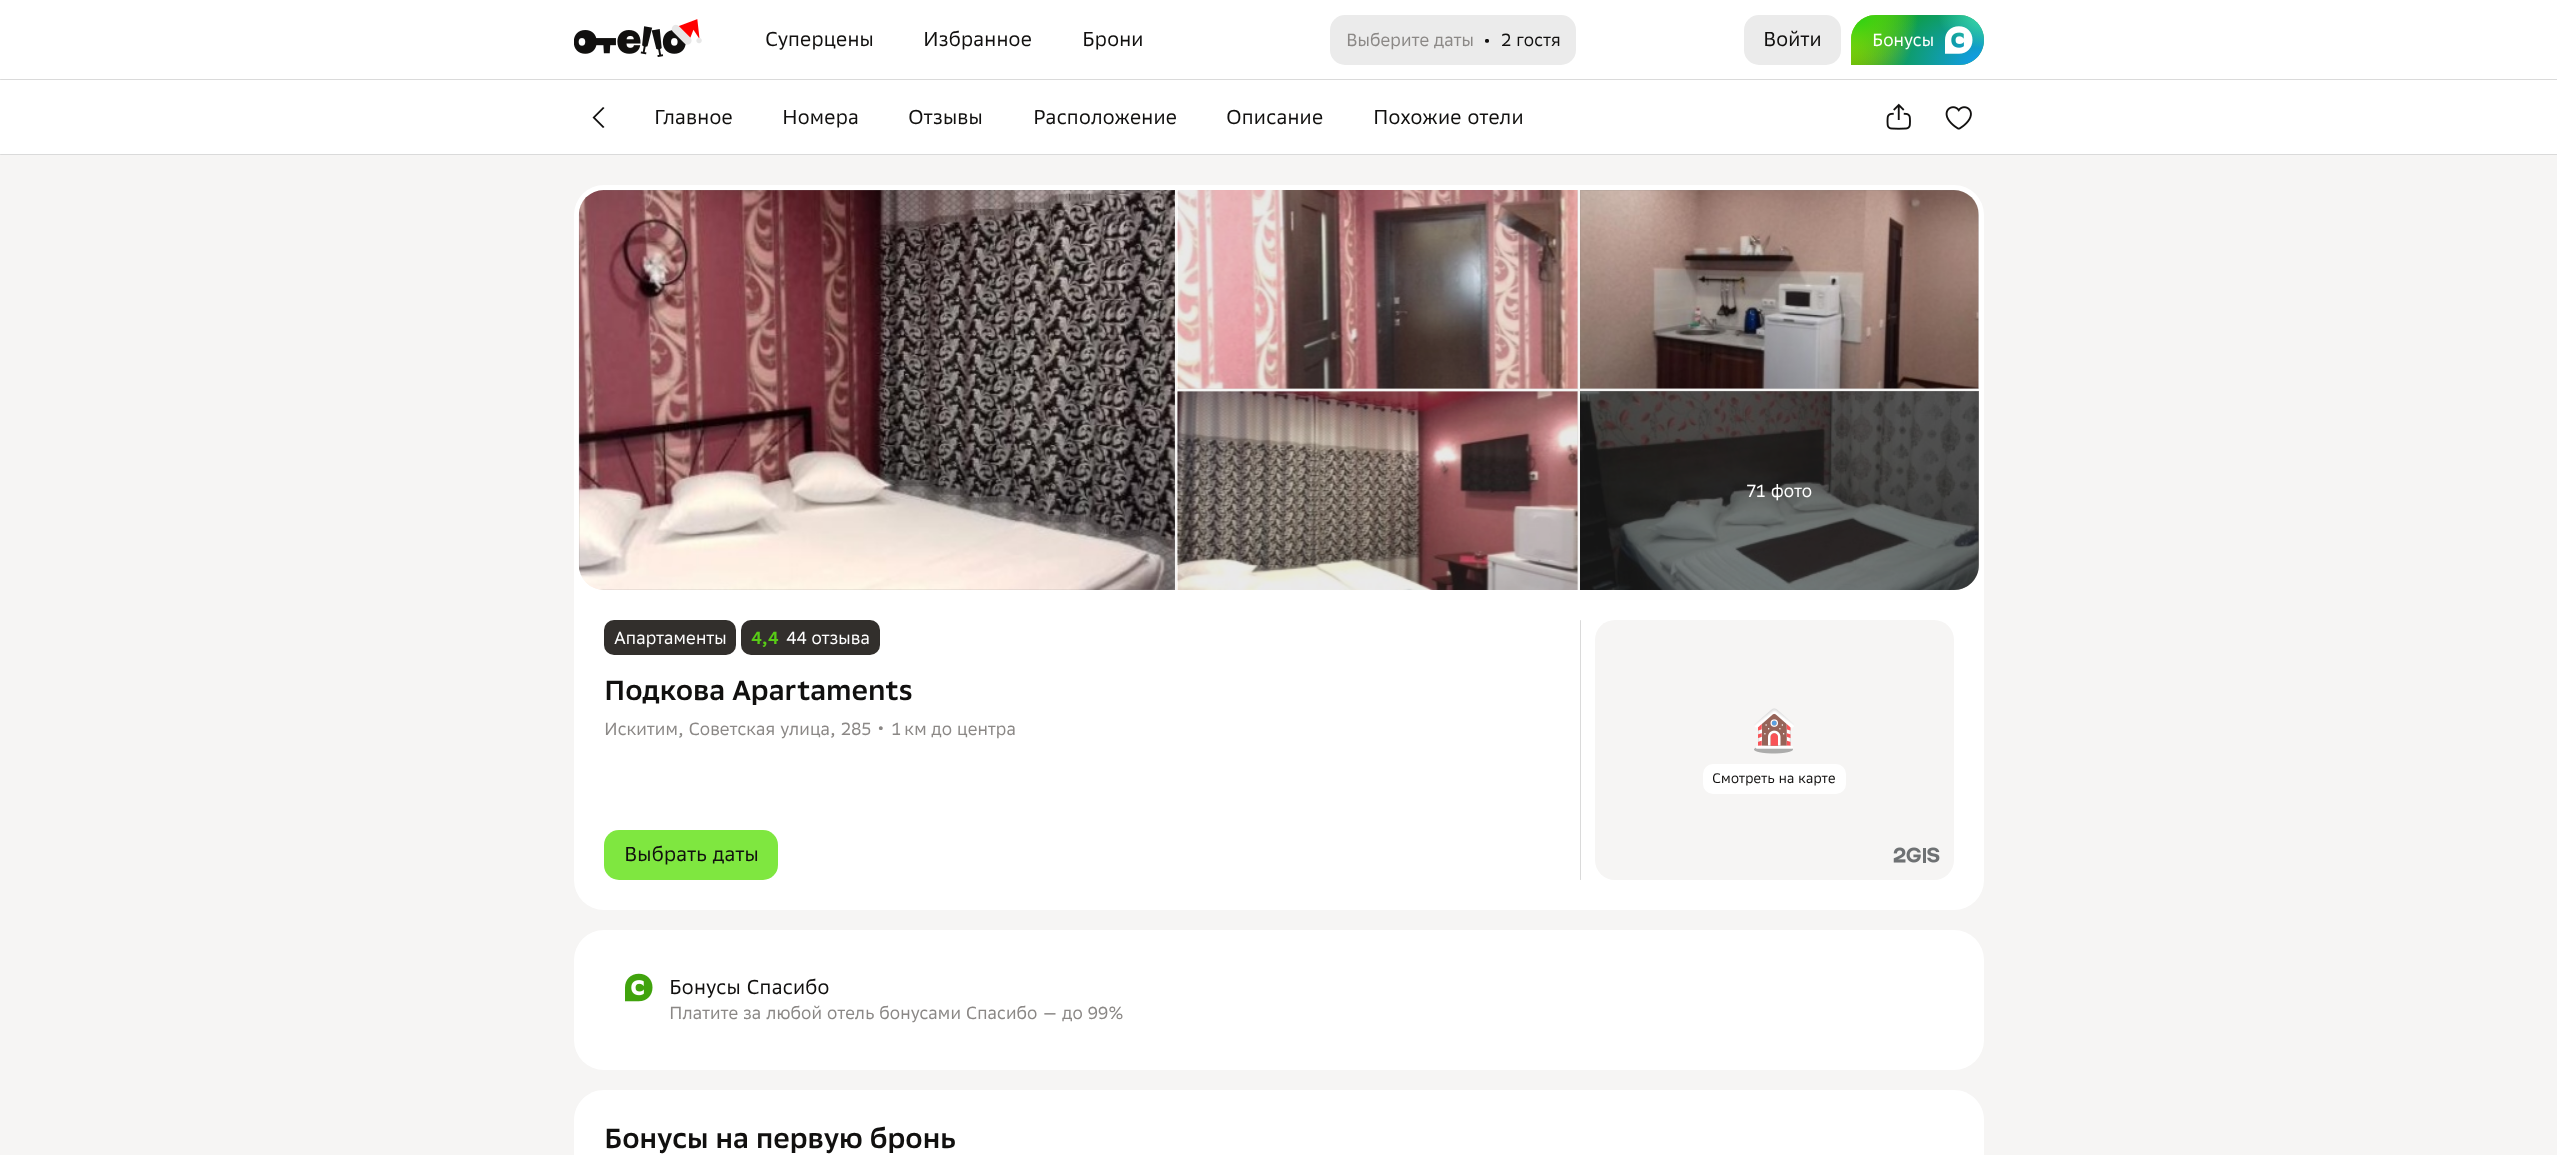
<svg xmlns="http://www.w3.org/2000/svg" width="2557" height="1155">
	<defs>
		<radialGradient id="g1" gradientUnits="userSpaceOnUse" cx="0" cy="0" r="1" gradientTransform="matrix(130 0 0 92 1984 65)"><stop offset="0" stop-color="#129DFA" /><stop offset="1" stop-color="#129DFA" stop-opacity="0" /></radialGradient>
		<radialGradient id="g2" gradientUnits="userSpaceOnUse" cx="0" cy="0" r="1" gradientTransform="matrix(51 0 0 34 1989 15)"><stop offset="0" stop-color="#42E3B4" /><stop offset="1" stop-color="#42E3B4" stop-opacity="0" /></radialGradient>
		<radialGradient id="g3" gradientUnits="userSpaceOnUse" cx="0" cy="0" r="1" gradientTransform="matrix(72 0 0 88 1846 15)"><stop offset="0" stop-color="#FAED05" /><stop offset="1" stop-color="#FAED05" stop-opacity="0" /></radialGradient>
		<radialGradient id="g4" gradientUnits="userSpaceOnUse" cx="0" cy="0" r="1" gradientTransform="matrix(71 0 0 51 1851 15)"><stop offset="0" stop-color="#15D015" /><stop offset="1" stop-color="#15D015" stop-opacity="0" /></radialGradient>
	</defs>
	<rect width="100%" height="100%" fill="#F6F5F4" />
	<rect x="0" y="0" width="2557" height="155" fill="#FFFFFF" />
	<rect x="0" y="79" width="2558" height="1" rx="0.5" fill="#DADADA" />
	<image x="574" y="19" width="128" height="38" href="assets/img1.png" />
	<g font-family="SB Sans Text" font-size="20" letter-spacing="-0.25" fill="#11100F">
		<text x="765" y="46">Суперцены</text>
		<text x="923" y="46">Избранное</text>
		<text x="1082" y="46">Брони</text>
	</g>
	<rect x="1330" y="15" width="246" height="50" rx="15" fill="#EBEBEB" />
	<text x="1346" y="46" font-family="SB Sans Text" font-size="17.5" letter-spacing="-0.35" fill="#8B8886">Выберите даты</text>
	<text x="1483" y="48" font-family="SB Sans Text" font-size="20" letter-spacing="-0.25" fill="#11100F">•</text>
	<text x="1501" y="46" font-family="SB Sans Text" font-size="17.5" letter-spacing="-0.35" fill="#11100F">2 гостя</text>
	<rect x="1744" y="15" width="97" height="50" rx="15" fill="#EBEBEB" />
	<text x="1763" y="46" font-family="SB Sans Text" font-size="20" letter-spacing="-0.25" fill="#11100F">Войти</text>
	<path d="M1876 15H1959C1973 15 1984 26 1984 40C1984 54 1973 65 1959 65H1851V40C1851 26 1862 15 1876 15Z" fill="#0C9C0C" />
	<path d="M1876 15H1959C1973 15 1984 26 1984 40C1984 54 1973 65 1959 65H1851V40C1851 26 1862 15 1876 15Z" fill="url(#g1)" />
	<path d="M1876 15H1959C1973 15 1984 26 1984 40C1984 54 1973 65 1959 65H1851V40C1851 26 1862 15 1876 15Z" fill="url(#g2)" />
	<path d="M1876 15H1959C1973 15 1984 26 1984 40C1984 54 1973 65 1959 65H1851V40C1851 26 1862 15 1876 15Z" fill="url(#g3)" />
	<path d="M1876 15H1959C1973 15 1984 26 1984 40C1984 54 1973 65 1959 65H1851V40C1851 26 1862 15 1876 15Z" fill="url(#g4)" />
	<text x="1872" y="46" font-family="SB Sans Text" font-size="17.5" letter-spacing="-0.35" fill="#FFFFFF">Бонусы</text>
	<image x="1945" y="26" width="28" height="28" href="assets/img2.png" />
	<rect x="0" y="154" width="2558" height="1" rx="0.5" fill="#DADADA" />
	<path d="M603 128L604.5 127L595 117.5L604.5 108L603 107L592.5 117.5Z" fill="#11100F" fill-rule="evenodd" />
	<g font-family="SB Sans Text" font-size="20" letter-spacing="-0.25" fill="#11100F">
		<text x="654" y="124">Главное</text>
		<text x="782" y="124">Номера</text>
		<text x="908" y="124">Отзывы</text>
		<text x="1033" y="124">Расположение</text>
		<text x="1226" y="124">Описание</text>
		<text x="1373" y="124">Похожие отели</text>
	</g>
	<image x="1886" y="103" width="25" height="27" href="assets/img3.png" />
	<image x="1945" y="106" width="27" height="24" href="assets/img4.png" />
	<rect x="574" y="185" width="1410" height="725" rx="30" fill="#FFFFFF" />
	<rect x="579" y="190" width="1400" height="400" rx="25" fill="#F6F5F4" />
	<image x="578" y="190" width="597" height="400" href="assets/img5.png" />
	<path d="M580 210L579 215V565L580 570ZM604 190L599 191H1174V589H599L604 590H1175V190Z" fill="#848382" fill-opacity="0.16" fill-rule="evenodd" />
	<rect x="1178" y="190" width="400" height="199" fill="#DCDAD9" />
	<image x="1177" y="190" width="401" height="199" href="assets/img6.png" />
	<rect x="1178" y="391" width="400" height="199" fill="#DCDAD9" />
	<image x="1177" y="391" width="401" height="199" href="assets/img7.png" />
	<path d="M1580 190H1954C1968 190 1979 201 1979 215V389H1580Z" fill="#EDEBEA" />
	<image x="1580" y="190" width="399" height="199" href="assets/img8.png" />
	<path d="M1580 190V389H1979V215L1978 210V388H1581V191H1959L1954 190Z" fill="#848382" fill-opacity="0.16" />
	<path d="M1580 391H1979V565C1979 579 1968 590 1954 590H1580Z" fill="#EDEBEA" />
	<image x="1580" y="391" width="399" height="199" href="assets/img9.png" />
	<path d="M1580 391H1979V565C1979 579 1968 590 1954 590H1580Z" fill="#000000" fill-opacity="0.5" />
	<path d="M1580 391V590H1954C1966 590 1975 582 1978 570L1979 565V391Z" fill="#848382" fill-opacity="0.16" />
	<text x="1746" y="497" font-family="SB Sans Text" font-size="17.5" letter-spacing="-0.35" fill="#FFFFFF">71 фото</text>
	<rect x="604" y="620" width="132" height="35" rx="10" fill="#322F2C" />
	<text x="614" y="644" font-family="SB Sans Text" font-size="17.5" letter-spacing="-0.35" fill="#FFFFFF">Апартаменты</text>
	<rect x="741" y="620" width="139" height="35" rx="10" fill="#322F2C" />
	<text x="751" y="644" font-family="SB Sans Text" font-size="17.5" font-weight="600" letter-spacing="-0.35" fill="#58CC16">4,4</text>
	<text x="786" y="644" font-family="SB Sans Text" font-size="17.5" letter-spacing="-0.35" fill="#FFFFFF">44 отзыва</text>
	<text x="604" y="700" font-family="SB Sans Text" font-size="27.5" font-weight="600" letter-spacing="-0.5" fill="#11100F">Подкова Apartaments</text>
	<text x="604" y="735" font-family="SB Sans Text" font-size="17.5" letter-spacing="-0.35" fill="#8B8886">Искитим, Советская улица, 285</text>
	<text x="877" y="735" font-family="SB Sans Text" font-size="19" letter-spacing="-0.35" fill="#8B8886">•</text>
	<text x="891" y="735" font-family="SB Sans Text" font-size="17.5" letter-spacing="-0.35" fill="#8B8886">1 км до центра</text>
	<rect x="604" y="830" width="174" height="50" rx="15" fill="#7FE740" />
	<text x="624" y="861" font-family="SB Sans Text" font-size="20" letter-spacing="-0.25" fill="#11100F">Выбрать даты</text>
	<rect x="1580" y="620" width="1" height="260" rx="0.5" fill="#DADADA" />
	<rect x="1595" y="620" width="359" height="260" rx="20" fill="#F6F5F4" />
	<rect x="1603" y="623" width="1" height="1" fill="#F9F7F7" />
	<image x="1893" y="847" width="47" height="16" href="assets/img10.png" />
	<image x="1754" y="708" width="40" height="46" href="assets/img11.png" />
	<rect x="1703" y="764" width="143" height="30" rx="10" fill="#FFFFFF" />
	<text x="1712" y="783" font-family="SB Sans Text" font-size="13.75" letter-spacing="-0.25" fill="#11100F">Смотреть на карте</text>
	<rect x="574" y="930" width="1410" height="140" rx="30" fill="#FFFFFF" />
	<image x="625" y="973" width="28" height="29" href="assets/img12.png" />
	<text x="669" y="994" font-family="SB Sans Text" font-size="20" letter-spacing="-0.25" fill="#11100F">Бонусы Спасибо</text>
	<text x="669" y="1019" font-family="SB Sans Text" font-size="17.5" letter-spacing="-0.35" fill="#8B8886">Платите за любой отель бонусами Спасибо — до 99%</text>
	<path d="M604 1090H1954C1970.5 1090 1984 1103.5 1984 1120V1155H574V1120C574 1103.5 587.5 1090 604 1090Z" fill="#FFFFFF" />
	<text x="604" y="1148" font-family="SB Sans Text" font-size="27.5" font-weight="600" letter-spacing="-0.5" fill="#11100F">Бонусы на первую бронь</text>
</svg>
